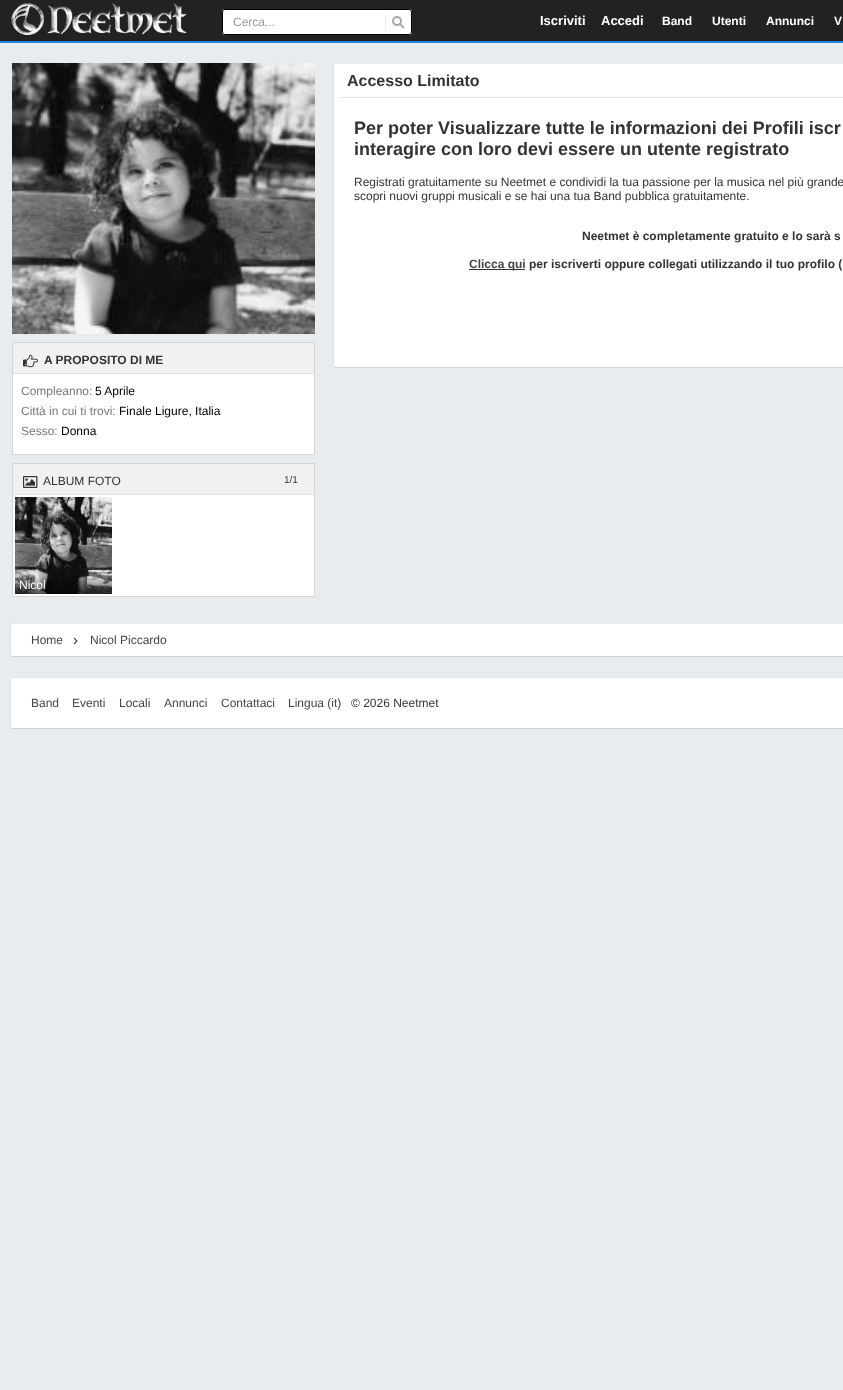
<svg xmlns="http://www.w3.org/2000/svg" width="843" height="1390">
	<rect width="100%" height="100%" fill="#E9ECEE" />
	<rect x="0" y="0" width="843" height="41" fill="#222222" />
	<rect x="0" y="41" width="843" height="2" fill="#1E82E1" />
	<image x="11" y="3" width="176" height="32" href="assets/img1.png" />
	<rect x="222" y="9" width="190" height="26" rx="3" fill="#FFFFFF" />
	<image x="385" y="15" width="20" height="15" href="assets/img2.png" />
	<rect x="222.5" y="9.5" width="189" height="25" rx="2.5" fill="none" stroke="#000000" />
	<text x="233" y="26" font-family="Liberation Sans" font-size="12" fill="#999999">Cerca...</text>
	<g font-family="Liberation Sans" font-size="13" font-weight="700" fill="#FFFFFF">
		<text x="540" y="25">Iscriviti</text>
		<text x="601" y="25">Accedi</text>
	</g>
	<g font-family="Liberation Sans" font-size="12" font-weight="700" fill="#FFFFFF">
		<text x="662" y="25">Band</text>
		<text x="712" y="25">Utenti</text>
		<text x="766" y="25">Annunci</text>
		<text x="834" y="25">V</text>
	</g>
	<rect x="333" y="63" width="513" height="305" rx="3" fill="#FFFFFF" />
	<path d="M334 64L336 63.5H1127L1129 64" fill="none" stroke="#E5E6E9" />
	<path d="M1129 367L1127 367.5H336L334 367" fill="none" stroke="#D0D1D5" />
	<path d="M334 367L333.5 365V66L334 64" fill="none" stroke="#DFE0E4" />
	<rect x="339" y="97" width="504" height="1" fill="#E5E5E5" />
	<text x="347" y="86" font-family="Liberation Sans" font-size="16" font-weight="700" fill="#333333">Accesso Limitato</text>
	<g font-family="Liberation Sans" font-size="18" font-weight="700" fill="#333333">
		<text x="354" y="134">Per poter Visualizzare tutte le informazioni dei Profili iscr</text>
		<text x="354" y="155">interagire con loro devi essere un utente registrato</text>
	</g>
	<g font-family="Liberation Sans" font-size="12" fill="#333333">
		<text x="354" y="186">Registrati gratuitamente su Neetmet e condividi la tua passione per la musica nel più grande</text>
		<text x="354" y="200">scopri nuovi gruppi musicali e se hai una tua Band pubblica gratuitamente.</text>
	</g>
	<text x="582" y="240" font-family="Liberation Sans" font-size="12" font-weight="700" fill="#333333">Neetmet è completamente gratuito e lo sarà s</text>
	<rect x="469" y="269" width="56" height="1" fill="#333333" />
	<text x="469" y="268" font-family="Liberation Sans" font-size="12" font-weight="700" fill="#444444">Clicca qui</text>
	<text x="529" y="268" font-family="Liberation Sans" font-size="12" font-weight="700" fill="#333333">per iscriverti oppure collegati utilizzando il tuo profilo (</text>
	<image x="12" y="63" width="303" height="271" href="assets/img3.png" />
	<rect x="13" y="374" width="301" height="80" fill="#FFFFFF" />
	<rect x="13" y="343" width="301" height="30" fill="#F1F1F1" />
	<rect x="12" y="342" width="303" height="1" fill="#D5D5D5" />
	<rect x="314" y="342" width="1" height="113" fill="#D5D5D5" />
	<rect x="12" y="373" width="303" height="1" fill="#E1E1E1" />
	<rect x="12" y="342" width="1" height="32" fill="#D5D5D5" />
	<image x="23" y="354" width="15" height="14" href="assets/img4.png" />
	<text x="44" y="364" font-family="Liberation Sans" font-size="12" font-weight="700" fill="#333333">A PROPOSITO DI ME</text>
	<rect x="12" y="454" width="303" height="1" fill="#D5D5D5" />
	<rect x="12" y="374" width="1" height="81" fill="#D5D5D5" />
	<text x="21" y="395" font-family="Liberation Sans" font-size="12" fill="#777777">Compleanno:</text>
	<text x="95" y="395" font-family="Liberation Sans" font-size="12" fill="#000000">5 Aprile</text>
	<text x="21" y="415" font-family="Liberation Sans" font-size="12" fill="#777777">Città in cui ti trovi:</text>
	<text x="119" y="415" font-family="Liberation Sans" font-size="12" fill="#000000">Finale Ligure, Italia</text>
	<text x="21" y="435" font-family="Liberation Sans" font-size="12" fill="#777777">Sesso:</text>
	<text x="61" y="435" font-family="Liberation Sans" font-size="12" fill="#000000">Donna</text>
	<rect x="13" y="495" width="301" height="101" fill="#FFFFFF" />
	<rect x="13" y="464" width="301" height="30" fill="#F1F1F1" />
	<rect x="12" y="463" width="303" height="1" fill="#D5D5D5" />
	<rect x="314" y="463" width="1" height="32" fill="#D5D5D5" />
	<rect x="12" y="494" width="303" height="1" fill="#E1E1E1" />
	<rect x="12" y="463" width="1" height="32" fill="#D5D5D5" />
	<image x="23" y="476" width="15" height="12" href="assets/img5.png" />
	<text x="43" y="485" font-family="Liberation Sans" font-size="12" fill="#333333">ALBUM FOTO</text>
	<text x="284" y="483" font-family="Liberation Sans" font-size="10" fill="#333333">1/1</text>
	<rect x="314" y="495" width="1" height="102" fill="#D5D5D5" />
	<rect x="12" y="596" width="303" height="1" fill="#D5D5D5" />
	<rect x="12" y="495" width="1" height="102" fill="#D5D5D5" />
	<image x="15" y="497" width="97" height="97" href="assets/img6.png" />
	<text x="19" y="589" font-family="Liberation Sans" font-size="12" fill="#FFFFFF">Nicol</text>
	<rect x="10" y="623" width="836" height="34" rx="3" fill="#FFFFFF" />
	<path d="M11 624L13 623.5H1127L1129 624" fill="none" stroke="#E5E6E9" />
	<path d="M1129 656L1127 656.5H13L11 656" fill="none" stroke="#D0D1D5" />
	<path d="M11 656C11 655.5 10.5 654.5 10.5 654V626C10.5 625.5 11 624.5 11 624" fill="none" stroke="#DFE0E4" />
	<text x="31" y="644" font-family="Liberation Sans" font-size="12" fill="#444444">Home</text>
	<text x="73" y="645" font-family="Liberation Sans" font-size="15" fill="#333333">›</text>
	<text x="90" y="644" font-family="Liberation Sans" font-size="12" fill="#444444">Nicol Piccardo</text>
	<rect x="10" y="677" width="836" height="52" rx="3" fill="#FFFFFF" />
	<path d="M11 678L13 677.5H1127L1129 678" fill="none" stroke="#E5E6E9" />
	<path d="M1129 728L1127 728.5H13L11 728" fill="none" stroke="#D0D1D5" />
	<path d="M11 728L10.5 726V680L11 678" fill="none" stroke="#DFE0E4" />
	<g font-family="Liberation Sans" font-size="12" fill="#444444">
		<text x="31" y="707">Band</text>
		<text x="72" y="707">Eventi</text>
		<text x="119" y="707">Locali</text>
		<text x="164" y="707">Annunci</text>
		<text x="221" y="707">Contattaci</text>
		<text x="288" y="707">Lingua (it)</text>
	</g>
	<text x="351" y="707" font-family="Liberation Sans" font-size="12" fill="#333333">© 2026 Neetmet</text>
</svg>
